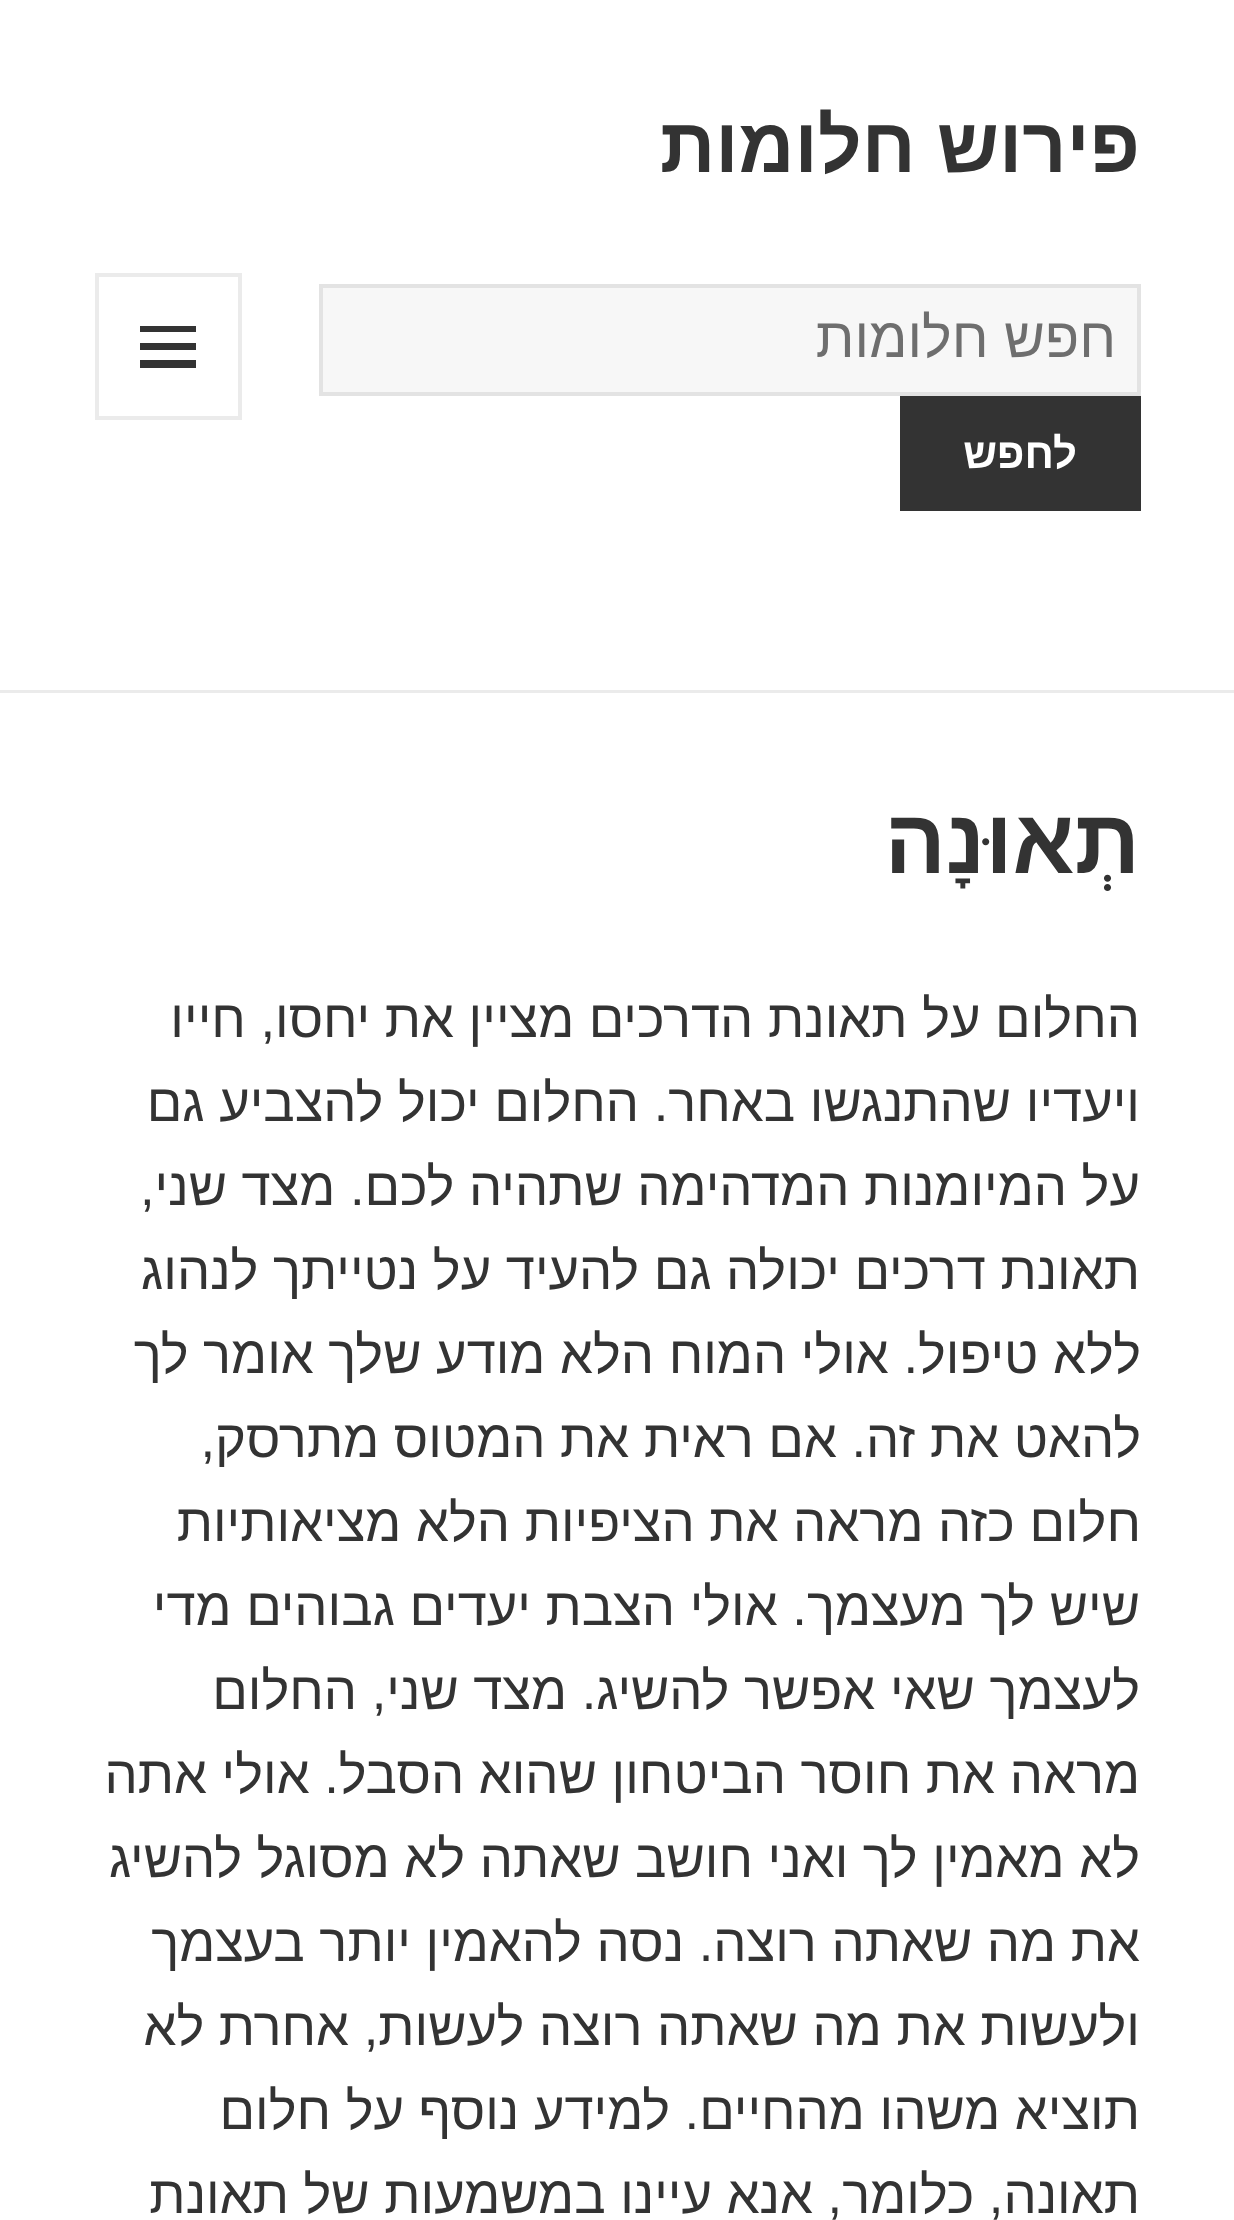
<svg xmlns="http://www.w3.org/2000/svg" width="1234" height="2220">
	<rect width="100%" height="100%" fill="#FFFFFF" />
	<rect x="0" y="690" width="1234" height="3" fill="#EBEBEB" />
	<text x="1140" y="172" font-family="Liberation Sans" font-size="77" font-weight="700" direction="rtl" fill="#333333">פירוש חלומות</text>
	<rect x="321" y="286" width="818" height="108" fill="#F7F7F7" stroke="#E3E3E3" stroke-width="4" />
	<text x="1116" y="357" font-family="Liberation Sans" font-size="56" direction="rtl" fill="#6E6E6E">חפש חלומות</text>
	<rect x="900" y="396" width="241" height="115" fill="#333333" />
	<text x="1077" y="468" font-family="Liberation Sans" font-size="42" font-weight="700" direction="rtl" fill="#FFFFFF">לחפש</text>
	<rect x="97" y="275" width="143" height="143" fill="none" stroke="#EBEBEB" stroke-width="4" />
	<path d="M140 368V360H196V368ZM140 326H196V332H140ZM140 350V343H196V350Z" fill="#333333" />
	<text x="1140" y="873" font-family="Liberation Sans" font-size="91" font-weight="700" direction="rtl" fill="#333333">תְאוּנָה</text>
	<g font-family="Liberation Sans" font-size="52.5" direction="rtl" fill="#333333">
		<text x="1140" y="1037">החלום על תאונת הדרכים מציין את יחסו, חייו</text>
		<text x="1140" y="1121">ויעדיו שהתנגשו באחר. החלום יכול להצביע גם</text>
		<text x="1140" y="1205">על המיומנות המדהימה שתהיה לכם. מצד שני,</text>
		<text x="1140" y="1289">תאונת דרכים יכולה גם להעיד על נטייתך לנהוג</text>
		<text x="1141" y="1373">ללא טיפול. אולי המוח הלא מודע שלך אומר לך</text>
		<text x="1141" y="1457">להאט את זה. אם ראית את המטוס מתרסק,</text>
		<text x="1141" y="1541">חלום כזה מראה את הציפיות הלא מציאותיות</text>
		<text x="1140" y="1625">שיש לך מעצמך. אולי הצבת יעדים גבוהים מדי</text>
		<text x="1140" y="1709">לעצמך שאי אפשר להשיג. מצד שני, החלום</text>
		<text x="1140" y="1793">מראה את חוסר הביטחון שהוא הסבל. אולי אתה</text>
		<text x="1140" y="1877">לא מאמין לך ואני חושב שאתה לא מסוגל להשיג</text>
		<text x="1140" y="1961">את מה שאתה רוצה. נסה להאמין יותר בעצמך</text>
		<text x="1140" y="2045">ולעשות את מה שאתה רוצה לעשות, אחרת לא</text>
		<text x="1140" y="2129">תוציא משהו מהחיים. למידע נוסף על חלום</text>
		<text x="1140" y="2213">תאונה, כלומר, אנא עיינו במשמעות של תאונת</text>
	</g>
</svg>
